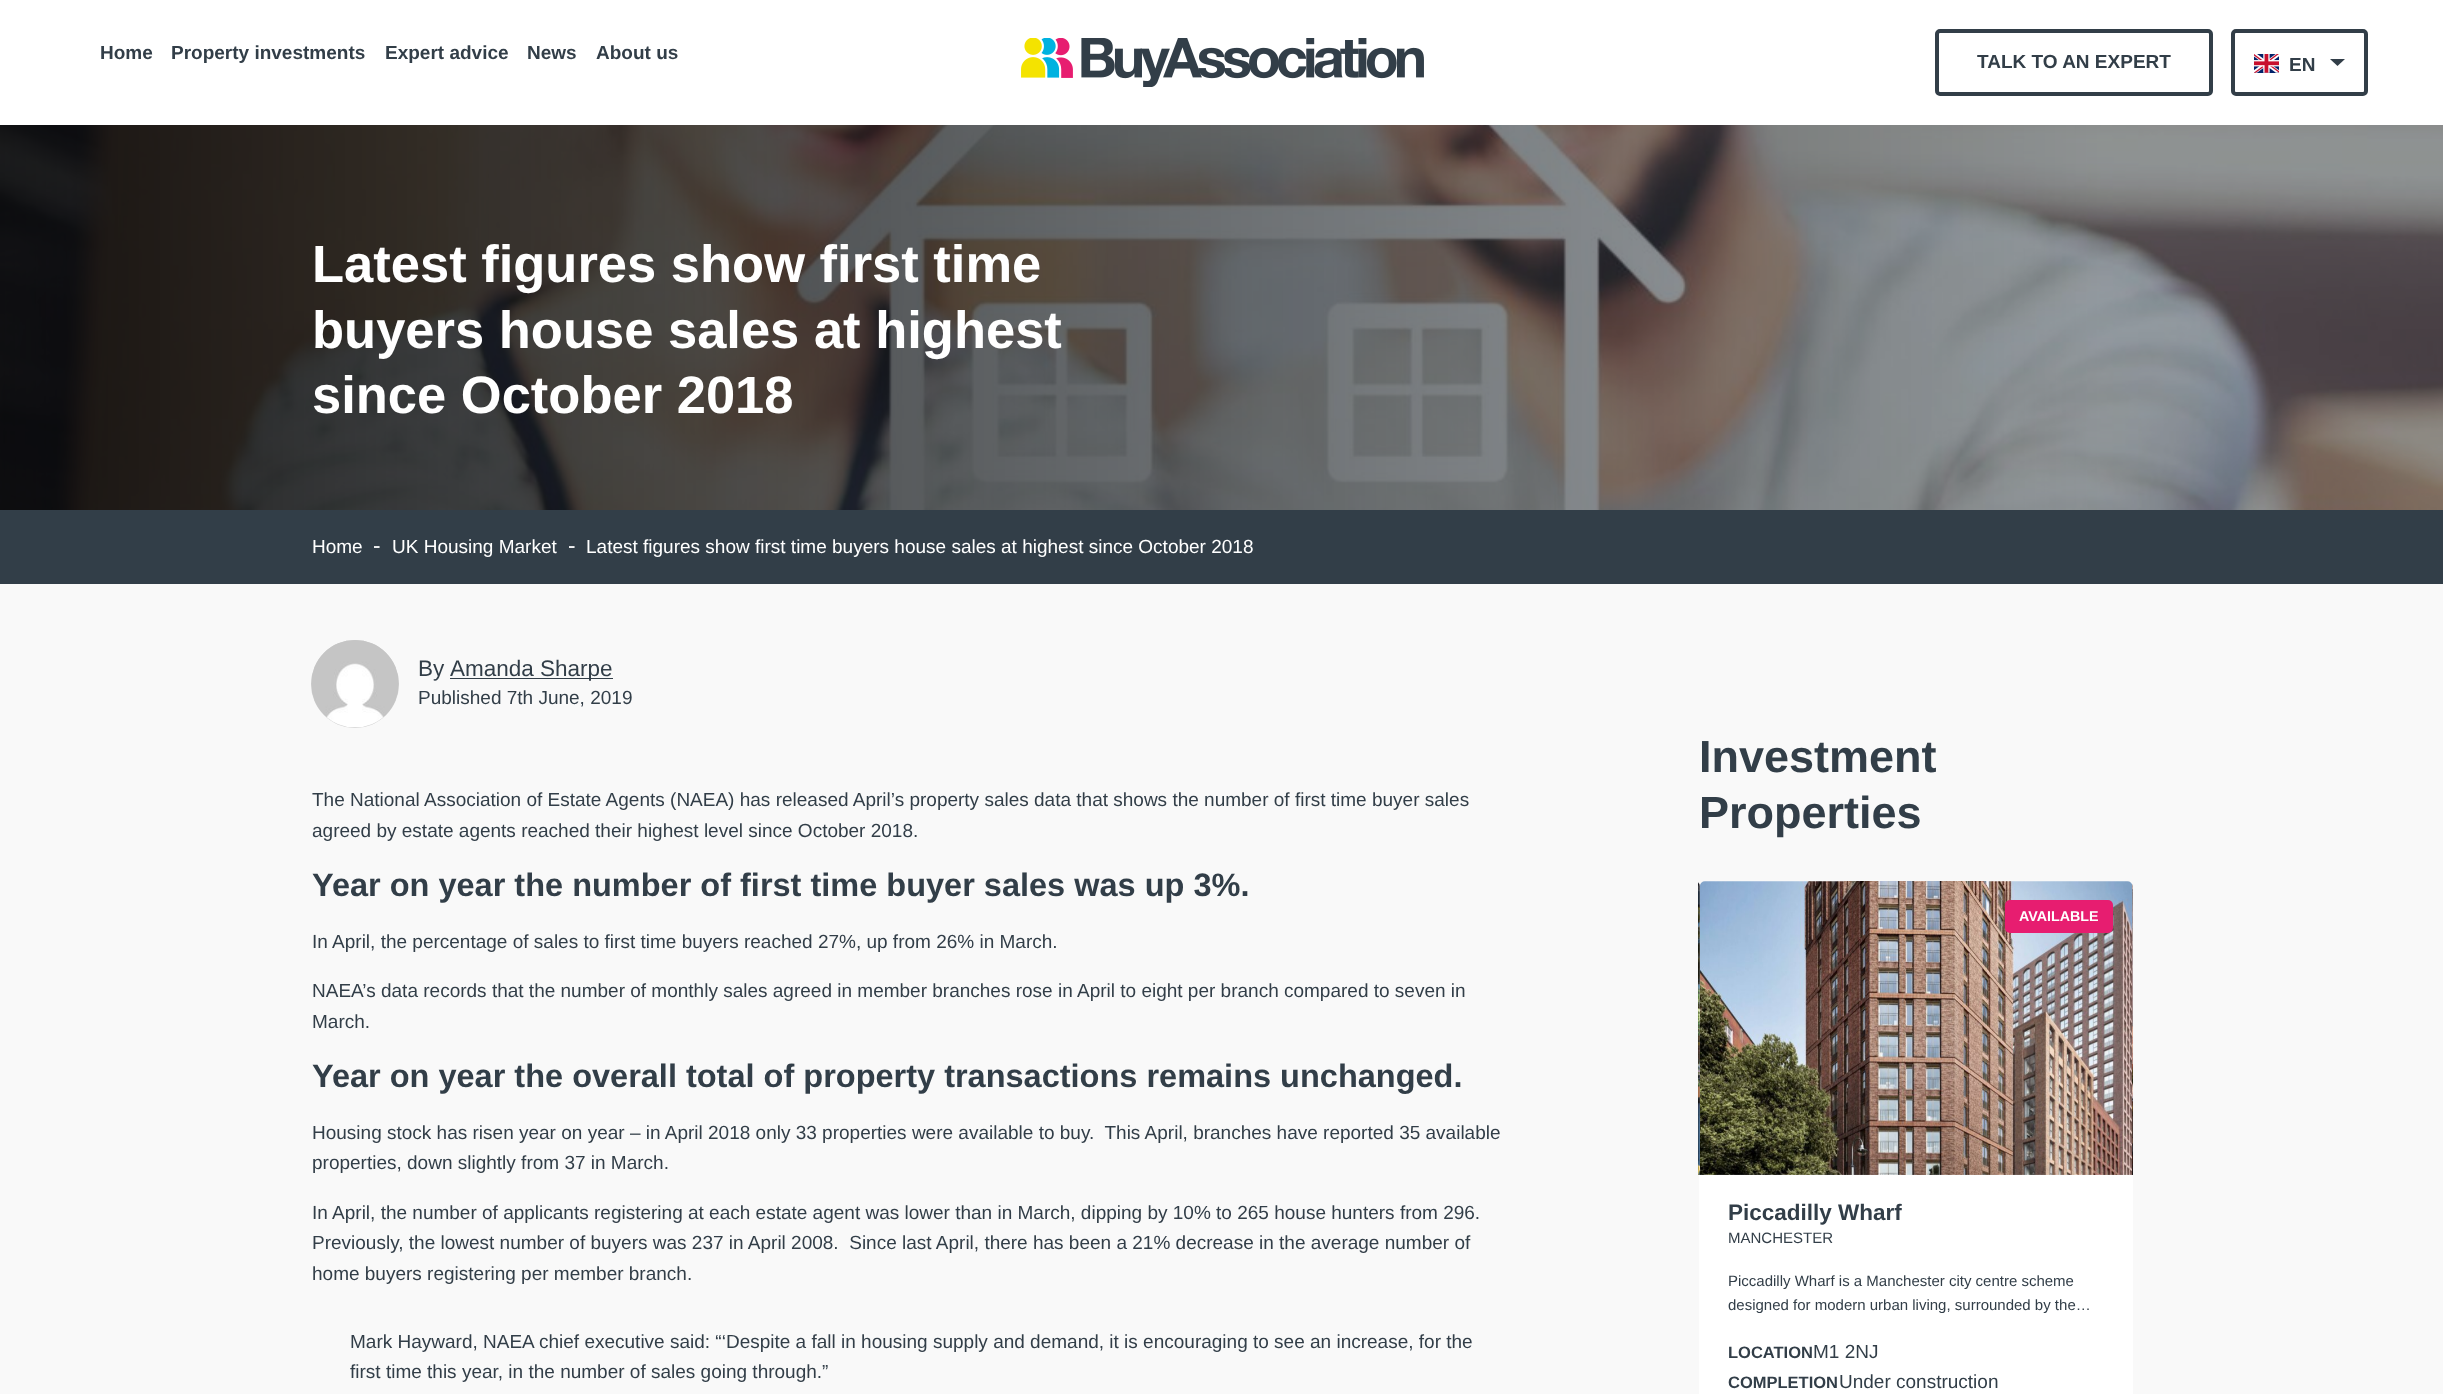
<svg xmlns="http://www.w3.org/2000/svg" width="2443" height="1394">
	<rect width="100%" height="100%" fill="#F9F9F9" />
	<rect x="0" y="0" width="2443" height="125" fill="#FFFFFF" />
	<g font-family="Liberation Sans" font-size="19" font-weight="700" fill="#323E48">
		<text x="100" y="59">Home</text>
		<text x="171" y="59">Property investments</text>
		<text x="385" y="59">Expert advice</text>
		<text x="527" y="59">News</text>
		<text x="596" y="59">About us</text>
	</g>
	<image x="1021" y="38" width="403" height="49" href="assets/img1.png" />
	<rect x="1937" y="31" width="274" height="63" rx="3" fill="none" stroke="#323E48" stroke-width="4" />
	<text x="1977" y="68" font-family="Liberation Sans" font-size="19" font-weight="700" fill="#323E48">TALK TO AN EXPERT</text>
	<rect x="2233" y="31" width="133" height="63" rx="3" fill="none" stroke="#323E48" stroke-width="4" />
	<image x="2254" y="54" width="25" height="19" href="assets/img2.png" />
	<text x="2289" y="71" font-family="Liberation Sans" font-size="19" font-weight="700" fill="#323E48">EN</text>
	<path d="M2330 59H2345L2337.5 66Z" fill="#323E48" />
	<image x="0" y="125" width="2443" height="385" href="assets/img3.png" />
	<g font-family="Liberation Sans" font-size="52.5" font-weight="700" fill="#FFFFFF">
		<text x="312" y="282">Latest figures show first time</text>
		<text x="312" y="348">buyers house sales at highest</text>
		<text x="312" y="413">since October 2018</text>
	</g>
	<rect x="0" y="510" width="2443" height="74" fill="#323E48" />
	<text x="312" y="553" font-family="Liberation Sans" font-size="19" fill="#FFFFFF">Home</text>
	<text x="373" y="553" font-family="Liberation Sans" font-size="22.5" fill="#FFFFFF">-</text>
	<text x="392" y="553" font-family="Liberation Sans" font-size="19" fill="#FFFFFF">UK Housing Market</text>
	<text x="568" y="553" font-family="Liberation Sans" font-size="22.5" fill="#FFFFFF">-</text>
	<text x="586" y="553" font-family="Liberation Sans" font-size="19" fill="#FFFFFF">Latest figures show first time buyers house sales at highest since October 2018</text>
	<circle cx="355" cy="684" r="44" fill="#D0D0D0" />
	<image x="311" y="640" width="88" height="88" href="assets/img4.png" />
	<text x="418" y="676" font-family="Liberation Sans" font-size="22.5" fill="#323E48">By</text>
	<rect x="450" y="678" width="163" height="1" fill="#323E48" />
	<text x="450" y="676" font-family="Liberation Sans" font-size="22.5" fill="#323E48">Amanda Sharpe</text>
	<g font-family="Liberation Sans" font-size="19" fill="#323E48">
		<text x="418" y="704">Published 7th June, 2019</text>
		<text x="312" y="806">The National Association of Estate Agents (NAEA) has released April’s property sales data that shows the number of first time buyer sales</text>
		<text x="312" y="837">agreed by estate agents reached their highest level since October 2018.</text>
	</g>
	<text x="312" y="896" font-family="Liberation Sans" font-size="32.5" font-weight="700" fill="#323E48">Year on year the number of first time buyer sales was up 3%.</text>
	<g font-family="Liberation Sans" font-size="19" fill="#323E48">
		<text x="312" y="948">In April, the percentage of sales to first time buyers reached 27%, up from 26% in March.</text>
		<text x="312" y="997">NAEA’s data records that the number of monthly sales agreed in member branches rose in April to eight per branch compared to seven in</text>
		<text x="312" y="1028">March.</text>
	</g>
	<text x="312" y="1087" font-family="Liberation Sans" font-size="32.5" font-weight="700" fill="#323E48">Year on year the overall total of property transactions remains unchanged.</text>
	<g font-family="Liberation Sans" font-size="19" fill="#323E48">
		<text x="312" y="1139" xml:space="preserve">Housing stock has risen year on year – in April 2018 only 33 properties were available to buy.  This April, branches have reported 35 available</text>
		<text x="312" y="1169">properties, down slightly from 37 in March.</text>
		<text x="312" y="1219">In April, the number of applicants registering at each estate agent was lower than in March, dipping by 10% to 265 house hunters from 296.</text>
		<text x="312" y="1249" xml:space="preserve">Previously, the lowest number of buyers was 237 in April 2008.  Since last April, there has been a 21% decrease in the average number of</text>
		<text x="312" y="1280">home buyers registering per member branch.</text>
		<text x="350" y="1348">Mark Hayward, NAEA chief executive said: “‘Despite a fall in housing supply and demand, it is encouraging to see an increase, for the</text>
		<text x="350" y="1378">first time this year, in the number of sales going through.”</text>
	</g>
	<g font-family="Liberation Sans" font-size="45" font-weight="700" fill="#323E48">
		<text x="1699" y="772">Investment</text>
		<text x="1699" y="828">Properties</text>
	</g>
	<image x="1698" y="882" width="2" height="293" href="assets/img5.png" />
	<rect x="1699" y="1175" width="434" height="219" fill="#FFFFFF" />
	<image x="1700" y="881" width="433" height="294" href="assets/img6.png" />
	<rect x="2005" y="900" width="108" height="33" rx="5" fill="#E71D70" />
	<text x="2019" y="921" font-family="Liberation Sans" font-size="14.25" font-weight="700" fill="#FFFFFF">AVAILABLE</text>
	<text x="1728" y="1220" font-family="Liberation Sans" font-size="22.5" font-weight="700" fill="#323E48">Piccadilly Wharf</text>
	<g font-family="Liberation Sans" font-size="15" fill="#323E48">
		<text x="1728" y="1243">MANCHESTER</text>
		<text x="1728" y="1286">Piccadilly Wharf is a Manchester city centre scheme</text>
		<text x="1728" y="1310">designed for modern urban living, surrounded by the…</text>
	</g>
	<text x="1728" y="1358" font-family="Liberation Sans" font-size="16.5" font-weight="700" fill="#323E48">LOCATION</text>
	<text x="1813" y="1358" font-family="Liberation Sans" font-size="19" fill="#323E48">M1 2NJ</text>
	<text x="1728" y="1388" font-family="Liberation Sans" font-size="16.5" font-weight="700" fill="#323E48">COMPLETION</text>
	<text x="1839" y="1388" font-family="Liberation Sans" font-size="19" fill="#323E48">Under construction</text>
	<image x="2132" y="884" width="1" height="291" href="assets/img7.png" />
</svg>
